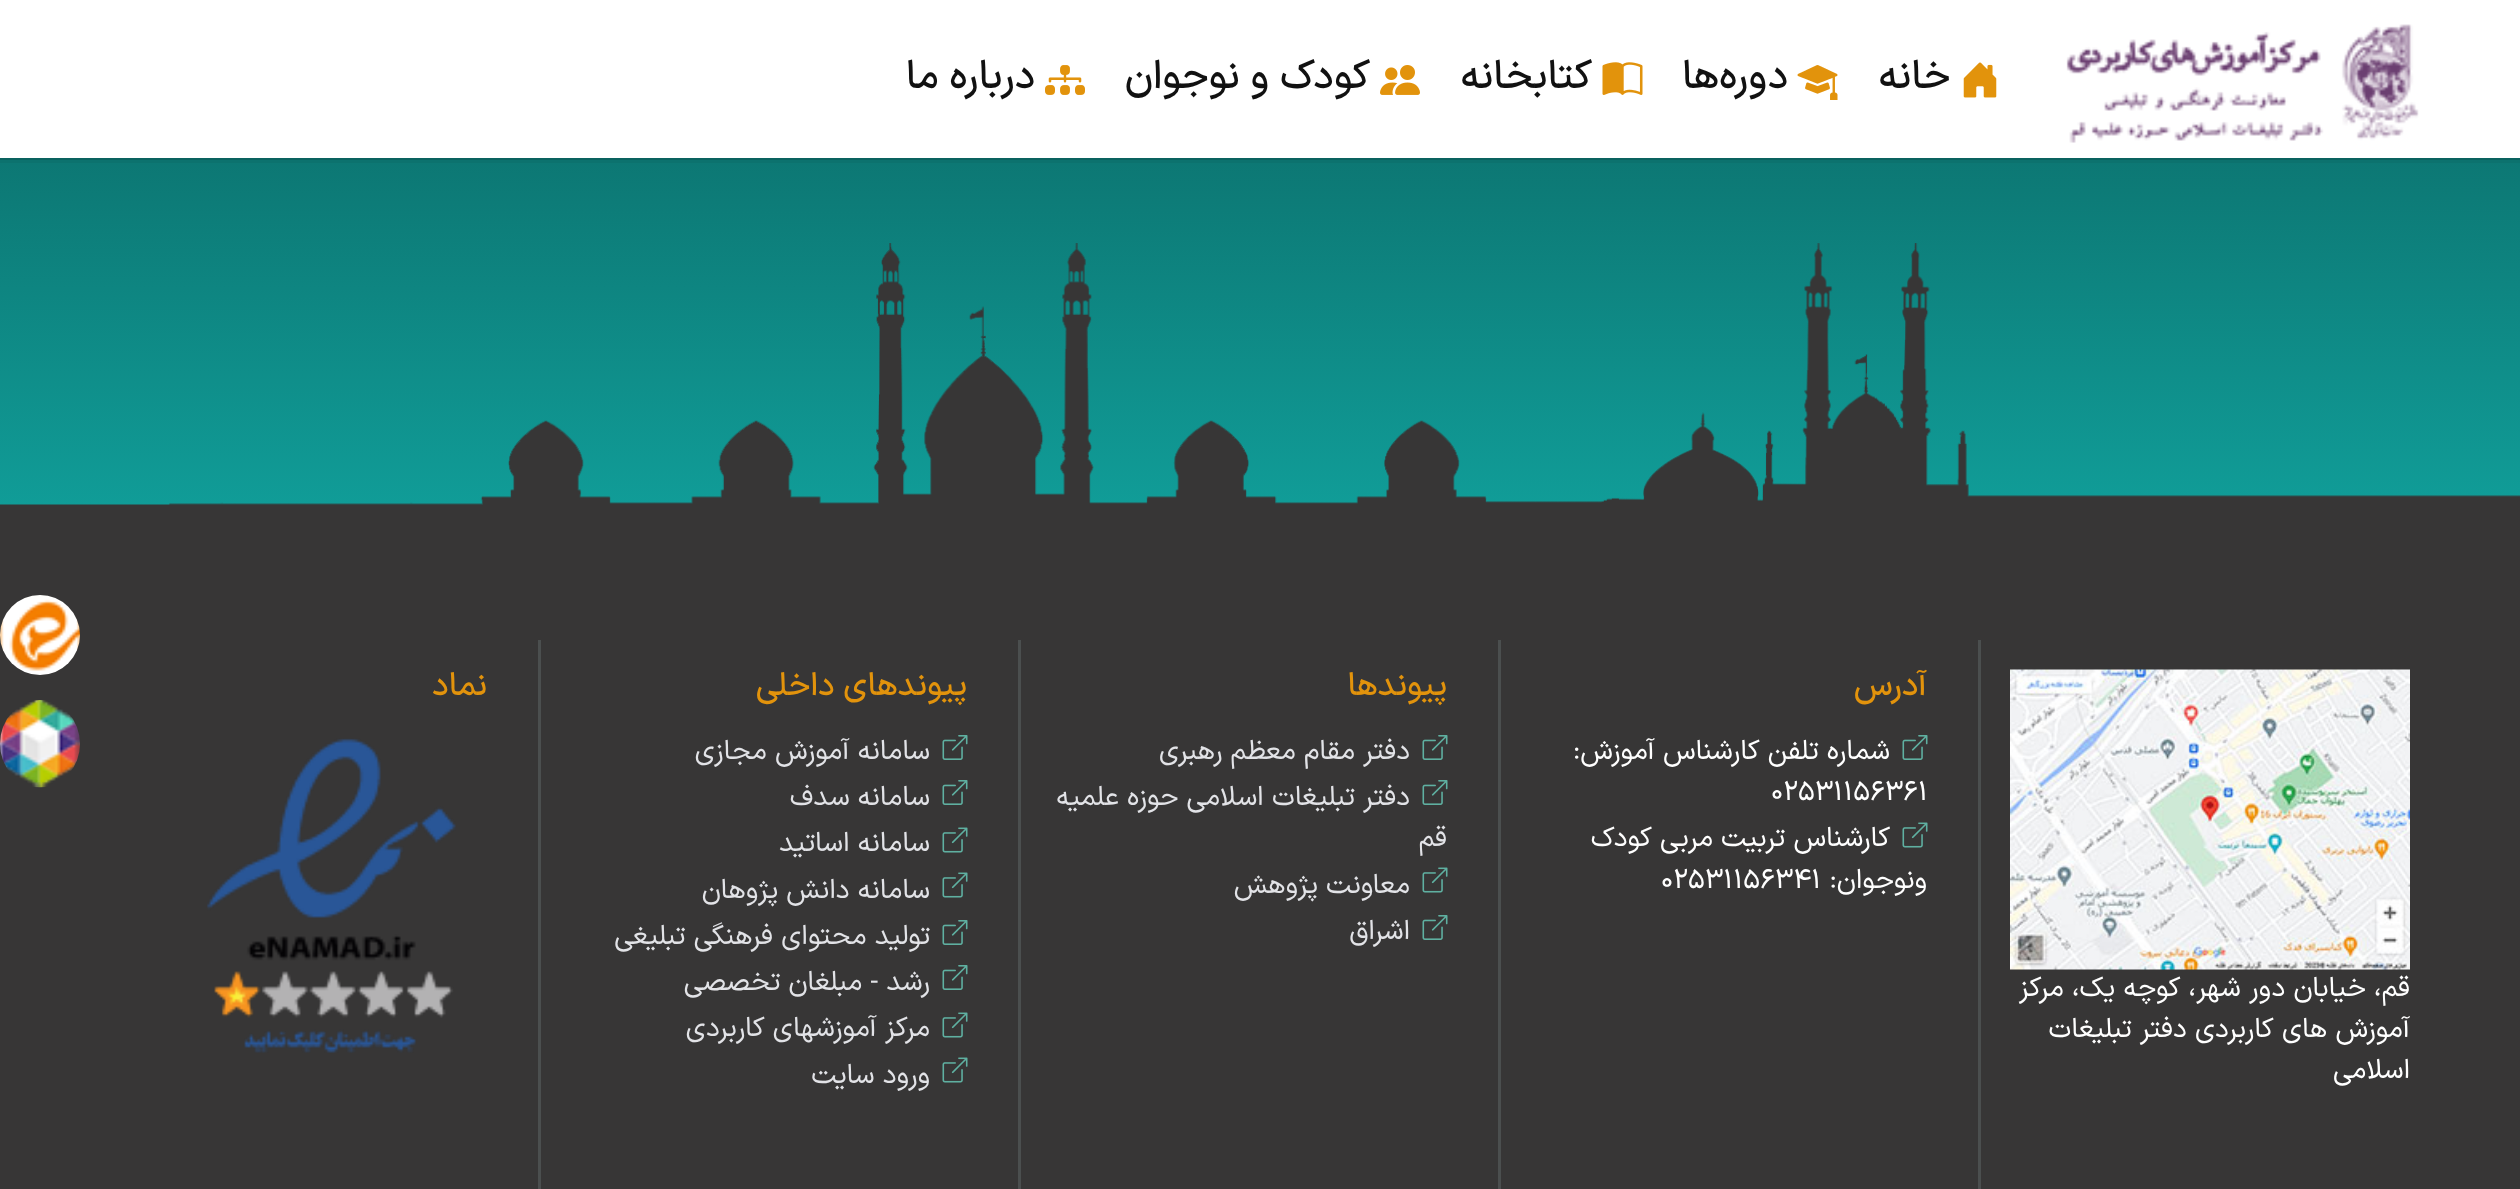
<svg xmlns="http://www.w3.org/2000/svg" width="2520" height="1189">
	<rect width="100%" height="100%" fill="#373636" />
	<rect x="0" y="160" width="2520" height="3" fill="#0C726E" />
	<rect x="0" y="158" width="2520" height="2" fill="#0A625F" />
	<rect x="0" y="0" width="2520" height="158" fill="#FFFFFF" />
	<image x="2066" y="24" width="353" height="119" href="assets/img1.png" />
	<image x="1963" y="62" width="34" height="36" href="assets/img2.png" />
	<text x="1950" y="88" font-family="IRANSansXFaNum" font-size="40" font-weight="500" direction="rtl" fill="#111111">خانه</text>
	<image x="1797" y="65" width="41" height="35" href="assets/img3.png" />
	<text x="1788" y="88" font-family="IRANSansXFaNum" font-size="40" font-weight="500" direction="rtl" fill="#111111">دوره‌ها</text>
	<image x="1602" y="62" width="41" height="33" href="assets/img4.png" />
	<text x="1592" y="88" font-family="IRANSansXFaNum" font-size="40" font-weight="500" direction="rtl" fill="#111111">کتابخانه</text>
	<image x="1380" y="65" width="40" height="30" href="assets/img5.png" />
	<text x="1370" y="88" font-family="IRANSansXFaNum" font-size="40" font-weight="500" direction="rtl" fill="#111111">کودک و نوجوان</text>
	<image x="1045" y="65" width="40" height="30" href="assets/img6.png" />
	<text x="1035" y="88" font-family="IRANSansXFaNum" font-size="40" font-weight="500" direction="rtl" fill="#111111">درباره ما</text>
	<image x="0" y="163" width="2520" height="342" href="assets/img7.png" />
	<rect x="1978" y="640" width="3" height="549" fill="#4B4F4F" />
	<text x="1927" y="695" font-family="IRANSansXFaNum" font-size="32.5" font-weight="500" direction="rtl" fill="#E2930C">آدرس</text>
	<image x="1902" y="735" width="26" height="25" href="assets/img8.png" />
	<text x="1890" y="759" font-family="IRANSansXFaNum" font-size="27.5" direction="rtl" fill="#FFFFFF">شماره تلفن کارشناس آموزش:</text>
	<text x="1771" y="800" font-family="IRANSansXFaNum" font-size="27.5" fill="#FFFFFF">02531156361</text>
	<image x="1902" y="822" width="26" height="26" href="assets/img9.png" />
	<g font-family="IRANSansXFaNum" font-size="27.5" direction="rtl" fill="#FFFFFF">
		<text x="1890" y="846">کارشناس تربیت مربی کودک</text>
		<text x="1927" y="888">ونوجوان:</text>
	</g>
	<text x="1661" y="888" font-family="IRANSansXFaNum" font-size="27.5" fill="#FFFFFF">02531156341</text>
	<rect x="1498" y="640" width="3" height="549" fill="#4B4F4F" />
	<text x="1447" y="695" font-family="IRANSansXFaNum" font-size="32.5" font-weight="500" direction="rtl" fill="#E2930C">پیوندها</text>
	<image x="1422" y="735" width="26" height="25" href="assets/img8.png" />
	<text x="1410" y="759" font-family="IRANSansXFaNum" font-size="27.5" direction="rtl" fill="#E2E3E7">دفتر مقام معظم رهبری</text>
	<image x="1422" y="780" width="26" height="25" href="assets/img8.png" />
	<g font-family="IRANSansXFaNum" font-size="27.5" direction="rtl" fill="#E2E3E7">
		<text x="1410" y="805">دفتر تبلیغات اسلامی حوزه علمیه</text>
		<text x="1447" y="846">قم</text>
	</g>
	<image x="1422" y="867" width="26" height="26" href="assets/img9.png" />
	<text x="1410" y="893" font-family="IRANSansXFaNum" font-size="27.5" direction="rtl" fill="#E2E3E7">معاونت پژوهش</text>
	<image x="1422" y="915" width="26" height="25" href="assets/img8.png" />
	<text x="1410" y="939" font-family="IRANSansXFaNum" font-size="27.5" direction="rtl" fill="#E2E3E7">اشراق</text>
	<rect x="1018" y="640" width="3" height="549" fill="#4B4F4F" />
	<text x="967" y="695" font-family="IRANSansXFaNum" font-size="32.5" font-weight="500" direction="rtl" fill="#E2930C">پیوندهای داخلی</text>
	<image x="942" y="735" width="26" height="25" href="assets/img8.png" />
	<text x="930" y="759" font-family="IRANSansXFaNum" font-size="27.5" direction="rtl" fill="#E2E3E7">سامانه آموزش مجازی</text>
	<image x="942" y="780" width="26" height="25" href="assets/img8.png" />
	<text x="930" y="805" font-family="IRANSansXFaNum" font-size="27.5" direction="rtl" fill="#E2E3E7">سامانه سدف</text>
	<image x="942" y="827" width="26" height="26" href="assets/img9.png" />
	<text x="930" y="851" font-family="IRANSansXFaNum" font-size="27.5" direction="rtl" fill="#E2E3E7">سامانه اساتید</text>
	<image x="942" y="872" width="26" height="26" href="assets/img9.png" />
	<text x="930" y="898" font-family="IRANSansXFaNum" font-size="27.5" direction="rtl" fill="#E2E3E7">سامانه دانش پژوهان</text>
	<image x="942" y="920" width="26" height="25" href="assets/img8.png" />
	<text x="930" y="944" font-family="IRANSansXFaNum" font-size="27.5" direction="rtl" fill="#E2E3E7">تولید محتوای فرهنگی تبلیغی</text>
	<image x="942" y="965" width="26" height="25" href="assets/img8.png" />
	<text x="930" y="990" font-family="IRANSansXFaNum" font-size="27.5" direction="rtl" fill="#E2E3E7">رشد - مبلغان تخصصی</text>
	<image x="942" y="1012" width="26" height="26" href="assets/img9.png" />
	<text x="930" y="1036" font-family="IRANSansXFaNum" font-size="27.5" direction="rtl" fill="#E2E3E7">مرکز آموزشهای کاربردی</text>
	<image x="942" y="1057" width="26" height="26" href="assets/img9.png" />
	<text x="930" y="1083" font-family="IRANSansXFaNum" font-size="27.5" direction="rtl" fill="#E2E3E7">ورود سایت</text>
	<rect x="538" y="640" width="3" height="549" fill="#4B4F4F" />
	<text x="487" y="695" font-family="IRANSansXFaNum" font-size="32.5" font-weight="500" direction="rtl" fill="#E2930C">نماد</text>
	<image x="207" y="738" width="249" height="315" href="assets/img10.png" />
	<image x="2010" y="669" width="400" height="301" href="assets/img11.png" />
	<g font-family="IRANSansXFaNum" font-size="27.5" direction="rtl" fill="#FFFFFF">
		<text x="2410" y="996">قم، خیابان دور شهر، کوچه یک، مرکز</text>
		<text x="2410" y="1037">آموزش های کاربردی دفتر تبلیغات</text>
		<text x="2410" y="1078">اسلامی</text>
	</g>
	<image x="0" y="595" width="80" height="80" href="assets/img12.png" />
	<image x="0" y="700" width="80" height="88" href="assets/img13.png" />
</svg>
